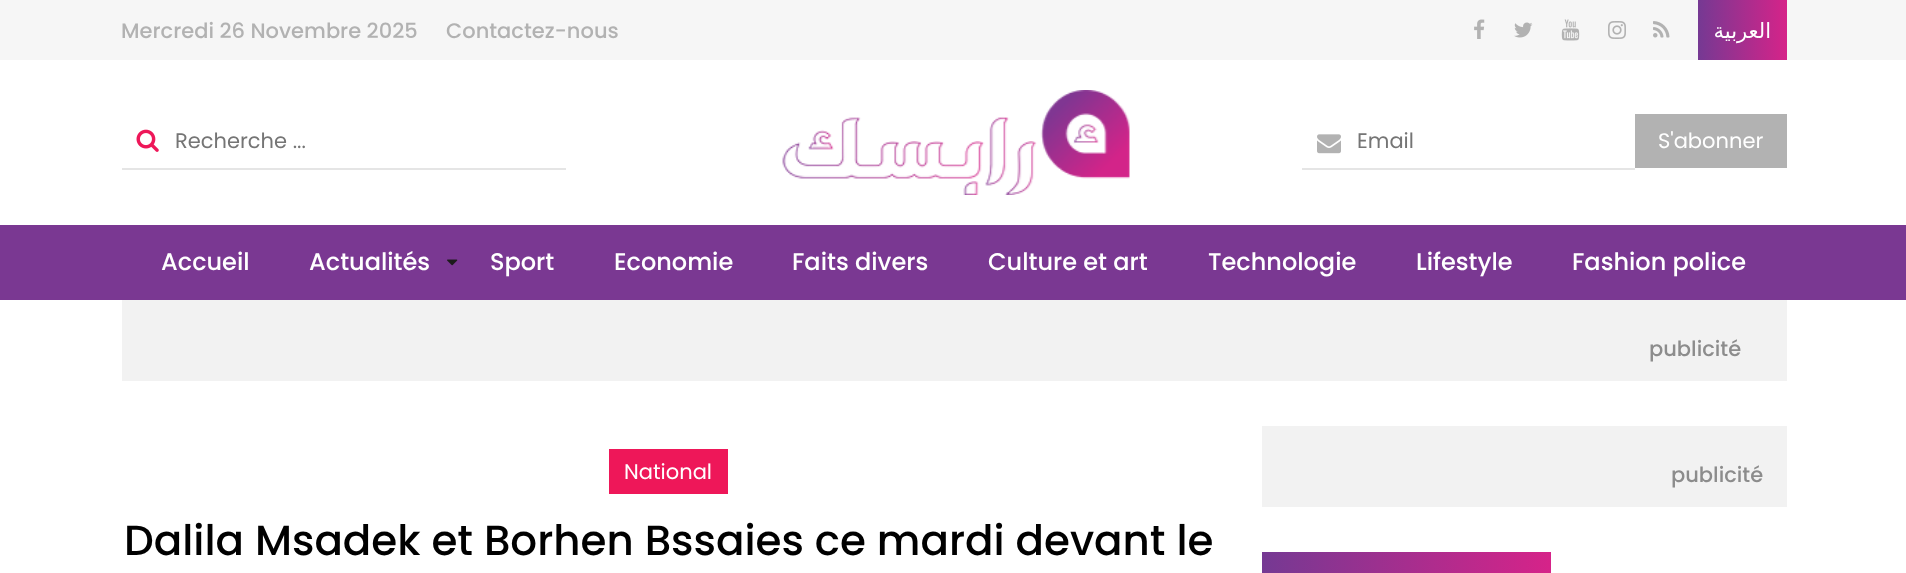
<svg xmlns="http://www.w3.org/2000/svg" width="1906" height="573">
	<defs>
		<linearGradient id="g1" gradientUnits="userSpaceOnUse" x1="1787" y1="30" x2="1698" y2="30"><stop offset="0" stop-color="#D62389" /><stop offset="1" stop-color="#753993" /></linearGradient>
		<linearGradient id="g2" gradientUnits="userSpaceOnUse" x1="1551" y1="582" x2="1262" y2="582"><stop offset="0" stop-color="#D62389" /><stop offset="1" stop-color="#753993" /></linearGradient>
	</defs>
	<rect width="100%" height="100%" fill="#FFFFFF" />
	<rect x="0" y="0" width="1906" height="60" fill="#F6F6F6" />
	<g font-family="Poppins" font-size="21" font-weight="500" fill="#B2B2B2">
		<text x="121" y="38">Mercredi 26 Novembre 2025</text>
		<text x="446" y="38">Contactez-nous</text>
	</g>
	<image x="1474" y="19" width="11" height="20" href="assets/img1.png" />
	<image x="1514" y="22" width="19" height="16" href="assets/img2.png" />
	<image x="1561" y="19" width="19" height="22" href="assets/img3.png" />
	<image x="1608" y="21" width="18" height="18" href="assets/img4.png" />
	<image x="1653" y="21" width="17" height="17" href="assets/img5.png" />
	<rect x="1698" y="0" width="89" height="60" fill="url(#g1)" />
	<text x="1771" y="38" font-family="DejaVu Sans" font-size="21" direction="rtl" fill="#FFFFFF">العربية</text>
	<image x="136" y="129" width="23" height="23" href="assets/img6.png" />
	<rect x="122" y="168" width="444" height="2" fill="#E5E5E5" />
	<text x="175" y="148" font-family="Poppins" font-size="21" fill="#757575">Recherche ...</text>
	<image x="782" y="90" width="348" height="105" href="assets/img7.png" />
	<image x="1317" y="134" width="24" height="20" href="assets/img8.png" />
	<rect x="1302" y="168" width="333" height="2" fill="#E5E5E5" />
	<text x="1357" y="148" font-family="Poppins" font-size="21" fill="#757575">Email</text>
	<rect x="1635" y="114" width="152" height="54" fill="#B2B2B2" />
	<text x="1658" y="148" font-family="Poppins" font-size="21" fill="#FFFFFF">S'abonner</text>
	<rect x="0" y="225" width="1906" height="75" fill="#7A3892" />
	<g font-family="Poppins" font-size="24" font-weight="500" fill="#FFFFFF">
		<text x="161" y="270">Accueil</text>
		<text x="309" y="270">Actualités</text>
	</g>
	<image x="447" y="259" width="11" height="7" href="assets/img9.png" />
	<g font-family="Poppins" font-size="24" font-weight="500" fill="#FFFFFF">
		<text x="490" y="270">Sport</text>
		<text x="614" y="270">Economie</text>
		<text x="792" y="270">Faits divers</text>
		<text x="988" y="270">Culture et art</text>
		<text x="1208" y="270">Technologie</text>
		<text x="1416" y="270">Lifestyle</text>
		<text x="1572" y="270">Fashion police</text>
	</g>
	<rect x="122" y="300" width="1665" height="81" fill="#F2F2F2" />
	<text x="1649" y="356" font-family="Poppins" font-size="21" font-weight="500" fill="#8C8C8C">publicité</text>
	<rect x="609" y="449" width="119" height="45" fill="#EE1759" />
	<text x="624" y="479" font-family="Poppins" font-size="21" fill="#FFFFFF">National</text>
	<text x="124" y="555" font-family="Poppins" font-size="42" font-weight="500" fill="#000000">Dalila Msadek et Borhen Bssaies ce mardi devant le</text>
	<rect x="1262" y="426" width="525" height="81" fill="#F2F2F2" />
	<text x="1671" y="482" font-family="Poppins" font-size="21" font-weight="500" fill="#8C8C8C">publicité</text>
	<rect x="1262" y="552" width="289" height="21" fill="url(#g2)" />
</svg>
